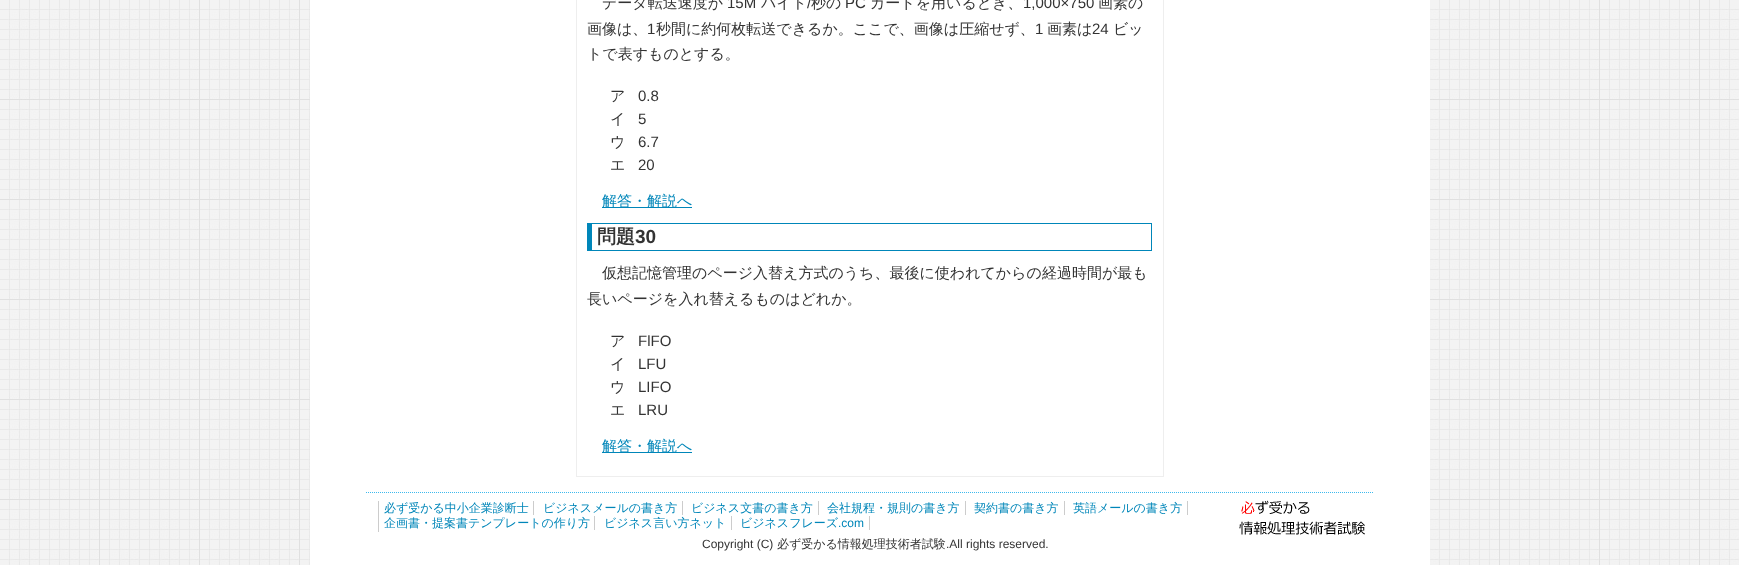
<svg xmlns="http://www.w3.org/2000/svg" width="1739" height="565">
	<rect width="100%" height="100%" fill="#FFFFFF" />
	<image x="0" y="0" width="1739" height="565" href="assets/img1.png" />
	<rect x="310" y="0" width="1120" height="565" fill="#FFFFFF" />
	<rect x="576.5" y="-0.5" width="587" height="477" fill="none" stroke="#EEEEEE" />
	<text x="602" y="8" font-family="WenQuanYi Zen Hei" font-size="15" font-weight="500" fill="#333333">データ転送速度が</text>
	<text x="727" y="8" font-family="Liberation Sans" font-size="15" fill="#333333">15M</text>
	<text x="761" y="8" font-family="WenQuanYi Zen Hei" font-size="15" font-weight="500" fill="#333333">バイト</text>
	<text x="807" y="8" font-family="Liberation Sans" font-size="15" fill="#333333">/</text>
	<text x="811" y="8" font-family="WenQuanYi Zen Hei" font-size="15" font-weight="500" fill="#333333">秒の</text>
	<text x="845" y="8" font-family="Liberation Sans" font-size="15" fill="#333333">PC</text>
	<text x="870" y="8" font-family="WenQuanYi Zen Hei" font-size="15" font-weight="500" fill="#333333">カードを用いるとき、</text>
	<text x="1023" y="8" font-family="Liberation Sans" font-size="15" fill="#333333">1,000×750</text>
	<g font-family="WenQuanYi Zen Hei" font-size="15" font-weight="500" fill="#333333">
		<text x="1098" y="8">画素の</text>
		<text x="587" y="34">画像は、</text>
	</g>
	<text x="647" y="34" font-family="Liberation Sans" font-size="15" fill="#333333">1</text>
	<text x="656" y="34" font-family="WenQuanYi Zen Hei" font-size="15" font-weight="500" fill="#333333">秒間に約何枚転送できるか。ここで、画像は圧縮せず、</text>
	<text x="1035" y="34" font-family="Liberation Sans" font-size="15" fill="#333333">1</text>
	<text x="1047" y="34" font-family="WenQuanYi Zen Hei" font-size="15" font-weight="500" fill="#333333">画素は</text>
	<text x="1092" y="34" font-family="Liberation Sans" font-size="15" fill="#333333">24</text>
	<g font-family="WenQuanYi Zen Hei" font-size="15" font-weight="500" fill="#333333">
		<text x="1113" y="34">ビッ</text>
		<text x="587" y="59">トで表すものとする。</text>
		<text x="610" y="101">ア</text>
	</g>
	<text x="638" y="101" font-family="Liberation Sans" font-size="15" fill="#333333">0.8</text>
	<text x="610" y="124" font-family="WenQuanYi Zen Hei" font-size="15" font-weight="500" fill="#333333">イ</text>
	<text x="638" y="124" font-family="Liberation Sans" font-size="15" fill="#333333">5</text>
	<text x="610" y="147" font-family="WenQuanYi Zen Hei" font-size="15" font-weight="500" fill="#333333">ウ</text>
	<text x="638" y="147" font-family="Liberation Sans" font-size="15" fill="#333333">6.7</text>
	<text x="610" y="170" font-family="WenQuanYi Zen Hei" font-size="15" font-weight="500" fill="#333333">エ</text>
	<text x="638" y="170" font-family="Liberation Sans" font-size="15" fill="#333333">20</text>
	<rect x="602" y="207" width="90" height="1" fill="#0086B9" />
	<text x="602" y="206" font-family="WenQuanYi Zen Hei" font-size="15" font-weight="500" fill="#0086B9">解答・解説へ</text>
	<rect x="587" y="223" width="565" height="1" fill="#0086B9" />
	<rect x="1151" y="223" width="1" height="28" fill="#0086B9" />
	<rect x="587" y="250" width="565" height="1" fill="#0086B9" />
	<rect x="587" y="223" width="5" height="28" fill="#0086B9" />
	<text x="597" y="243" font-family="WenQuanYi Zen Hei" font-size="19" font-weight="700" fill="#333333">問題</text>
	<text x="635" y="243" font-family="Liberation Sans" font-size="19" font-weight="700" fill="#333333">30</text>
	<g font-family="WenQuanYi Zen Hei" font-size="15" font-weight="500" fill="#333333">
		<text x="602" y="278">仮想記憶管理のページ入替え方式のうち、最後に使われてからの経過時間が最も</text>
		<text x="587" y="304">長いページを入れ替えるものはどれか。</text>
		<text x="610" y="346">ア</text>
	</g>
	<text x="638" y="346" font-family="Liberation Sans" font-size="15" fill="#333333">FlFO</text>
	<text x="610" y="369" font-family="WenQuanYi Zen Hei" font-size="15" font-weight="500" fill="#333333">イ</text>
	<text x="638" y="369" font-family="Liberation Sans" font-size="15" fill="#333333">LFU</text>
	<text x="610" y="392" font-family="WenQuanYi Zen Hei" font-size="15" font-weight="500" fill="#333333">ウ</text>
	<text x="638" y="392" font-family="Liberation Sans" font-size="15" fill="#333333">LIFO</text>
	<text x="610" y="415" font-family="WenQuanYi Zen Hei" font-size="15" font-weight="500" fill="#333333">エ</text>
	<text x="638" y="415" font-family="Liberation Sans" font-size="15" fill="#333333">LRU</text>
	<rect x="602" y="452" width="90" height="1" fill="#0086B9" />
	<text x="602" y="451" font-family="WenQuanYi Zen Hei" font-size="15" font-weight="500" fill="#0086B9">解答・解説へ</text>
	<image x="1239" y="500" width="126" height="35" href="assets/img2.png" />
	<path d="M366 492.5H1374" fill="none" stroke="#3EBAEE" stroke-dasharray="1 1" />
	<rect x="378" y="501" width="1" height="31" fill="#CCCCCC" />
	<text x="384" y="512" font-family="WenQuanYi Zen Hei" font-size="12" font-weight="500" fill="#0086B9">必ず受かる中小企業診断士</text>
	<rect x="533" y="501" width="1" height="14" fill="#CCCCCC" />
	<text x="543" y="512" font-family="WenQuanYi Zen Hei" font-size="12" font-weight="500" fill="#0086B9">ビジネスメールの書き方</text>
	<rect x="682" y="501" width="1" height="14" fill="#CCCCCC" />
	<text x="691" y="512" font-family="WenQuanYi Zen Hei" font-size="12" font-weight="500" fill="#0086B9">ビジネス文書の書き方</text>
	<rect x="818" y="501" width="1" height="14" fill="#CCCCCC" />
	<text x="827" y="512" font-family="WenQuanYi Zen Hei" font-size="12" font-weight="500" fill="#0086B9">会社規程・規則の書き方</text>
	<rect x="965" y="501" width="1" height="14" fill="#CCCCCC" />
	<text x="974" y="512" font-family="WenQuanYi Zen Hei" font-size="12" font-weight="500" fill="#0086B9">契約書の書き方</text>
	<rect x="1064" y="501" width="1" height="14" fill="#CCCCCC" />
	<text x="1073" y="512" font-family="WenQuanYi Zen Hei" font-size="12" font-weight="500" fill="#0086B9">英語メールの書き方</text>
	<rect x="1187" y="501" width="1" height="14" fill="#CCCCCC" />
	<text x="384" y="527" font-family="WenQuanYi Zen Hei" font-size="12" font-weight="500" fill="#0086B9">企画書・提案書テンプレートの作り方</text>
	<rect x="594" y="516" width="1" height="14" fill="#CCCCCC" />
	<text x="604" y="527" font-family="WenQuanYi Zen Hei" font-size="12" font-weight="500" fill="#0086B9">ビジネス言い方ネット</text>
	<rect x="731" y="516" width="1" height="14" fill="#CCCCCC" />
	<text x="740" y="527" font-family="WenQuanYi Zen Hei" font-size="12" font-weight="500" fill="#0086B9">ビジネスフレーズ</text>
	<text x="838" y="527" font-family="Liberation Sans" font-size="12" fill="#0086B9">.com</text>
	<rect x="869" y="516" width="1" height="14" fill="#CCCCCC" />
	<text x="702" y="548" font-family="Liberation Sans" font-size="12" fill="#333333">Copyright (C)</text>
	<text x="777" y="548" font-family="WenQuanYi Zen Hei" font-size="12" font-weight="500" fill="#333333">必ず受かる情報処理技術者試験</text>
	<text x="946" y="548" font-family="Liberation Sans" font-size="12" fill="#333333">.All rights reserved.</text>
</svg>
